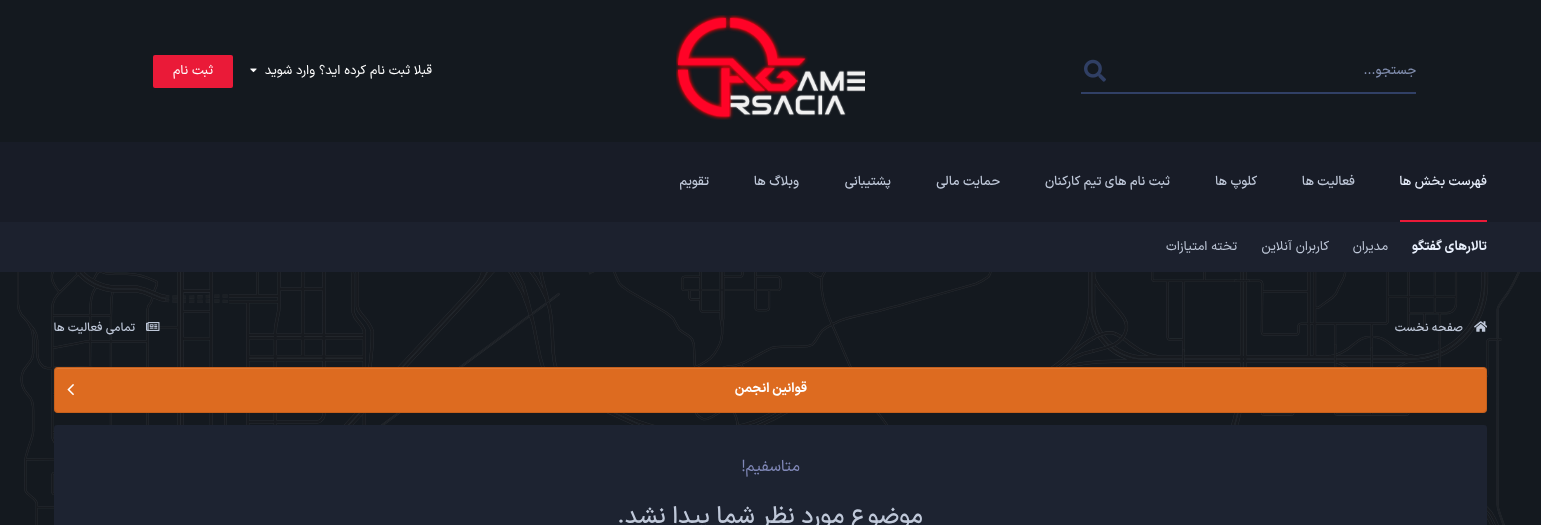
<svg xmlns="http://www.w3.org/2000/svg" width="1541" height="525">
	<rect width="100%" height="100%" fill="#14191F" />
	<text x="1416" y="74" font-family="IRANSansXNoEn" font-size="13" font-weight="500" direction="rtl" fill="#808DAD">جستجو...</text>
	<image x="1084" y="59" width="22" height="23" href="assets/img1.png" />
	<rect x="1081" y="92" width="335" height="2" fill="#314066" />
	<image x="676" y="15" width="189" height="105" href="assets/img2.png" />
	<text x="432" y="74" font-family="IRANSansXNoEn" font-size="13" direction="rtl" fill="#FFFFFF">قبلا ثبت نام کرده اید؟ وارد شوید</text>
	<image x="250" y="68" width="7" height="5" href="assets/img3.png" />
	<rect x="153" y="55" width="80" height="33" rx="2" fill="#EA1A38" />
	<text x="213" y="74" font-family="IRANSansXNoEn" font-size="13" direction="rtl" fill="#FFFFFF">ثبت نام</text>
	<rect x="0" y="142" width="1541" height="80" fill="#181C27" />
	<text x="1487" y="185" font-family="IRANSansXNoEn" font-size="13" font-weight="500" direction="rtl" fill="#E8EFFC">فهرست بخش ها</text>
	<rect x="1400" y="220" width="87" height="2" fill="#EA1A38" />
	<rect x="0" y="222" width="1541" height="50" fill="#1C212E" />
	<text x="1487" y="250" font-family="IRANSansXNoEn" font-size="13" font-weight="700" direction="rtl" fill="#E8EFFC">تالارهای گفتگو</text>
	<g font-family="IRANSansXNoEn" font-size="13" direction="rtl" fill="#BFC8D9">
		<text x="1388" y="250">مدیران</text>
		<text x="1329" y="250">کاربران آنلاین</text>
		<text x="1237" y="250">تخته امتیازات</text>
	</g>
	<g font-family="IRANSansXNoEn" font-size="13" font-weight="500" direction="rtl" fill="#BFC8D9">
		<text x="799" y="185">وبلاگ ها</text>
		<text x="1355" y="185">فعالیت ها</text>
		<text x="1257" y="185">کلوپ ها</text>
		<text x="1170" y="185">ثبت نام های تیم کارکنان</text>
		<text x="1000" y="185">حمایت مالی</text>
		<text x="891" y="185">پشتیبانی</text>
		<text x="709" y="185">تقویم</text>
	</g>
	<image x="17" y="272" width="1503" height="253" href="assets/img4.png" />
	<image x="1474" y="321" width="13" height="11" href="assets/img5.png" />
	<text x="1463" y="331" font-family="IRANSansXNoEn" font-size="12" font-weight="500" direction="rtl" fill="#BFC8D9">صفحه نخست</text>
	<image x="146" y="322" width="14" height="9" href="assets/img6.png" />
	<text x="135" y="331" font-family="IRANSansXNoEn" font-size="12" font-weight="500" direction="rtl" fill="#BFC8D9">تمامی فعالیت ها</text>
	<rect x="54" y="367" width="1433" height="46" rx="4" fill="#DD6B20" />
	<path d="M58 369H1483C1485 369 1486 370 1486 372V371C1486 369 1485 368 1483 368H58C56 368 55 369 55 371V372C55 370 56 369 58 369Z" fill="#E07A36" />
	<rect x="54.5" y="367.5" width="1432" height="45" rx="3.5" fill="none" stroke="#000000" stroke-opacity="0.1" />
	<text x="807" y="392" font-family="IRANSansXNoEn" font-size="13" font-weight="700" direction="rtl" fill="#FFFFFF">قوانین انجمن</text>
	<image x="67" y="384" width="7" height="12" href="assets/img7.png" />
	<rect x="54" y="425" width="1433" height="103" rx="3" fill="#1D2331" />
	<text x="800" y="471" font-family="IRANSansXNoEn" font-size="16" direction="rtl" fill="#8088B8">متاسفیم!</text>
	<text x="923" y="523" font-family="IRANSansXNoEn" font-size="24" font-weight="500" direction="rtl" fill="#BFC8D9">موضوع مورد نظر شما پیدا نشد.</text>
</svg>
